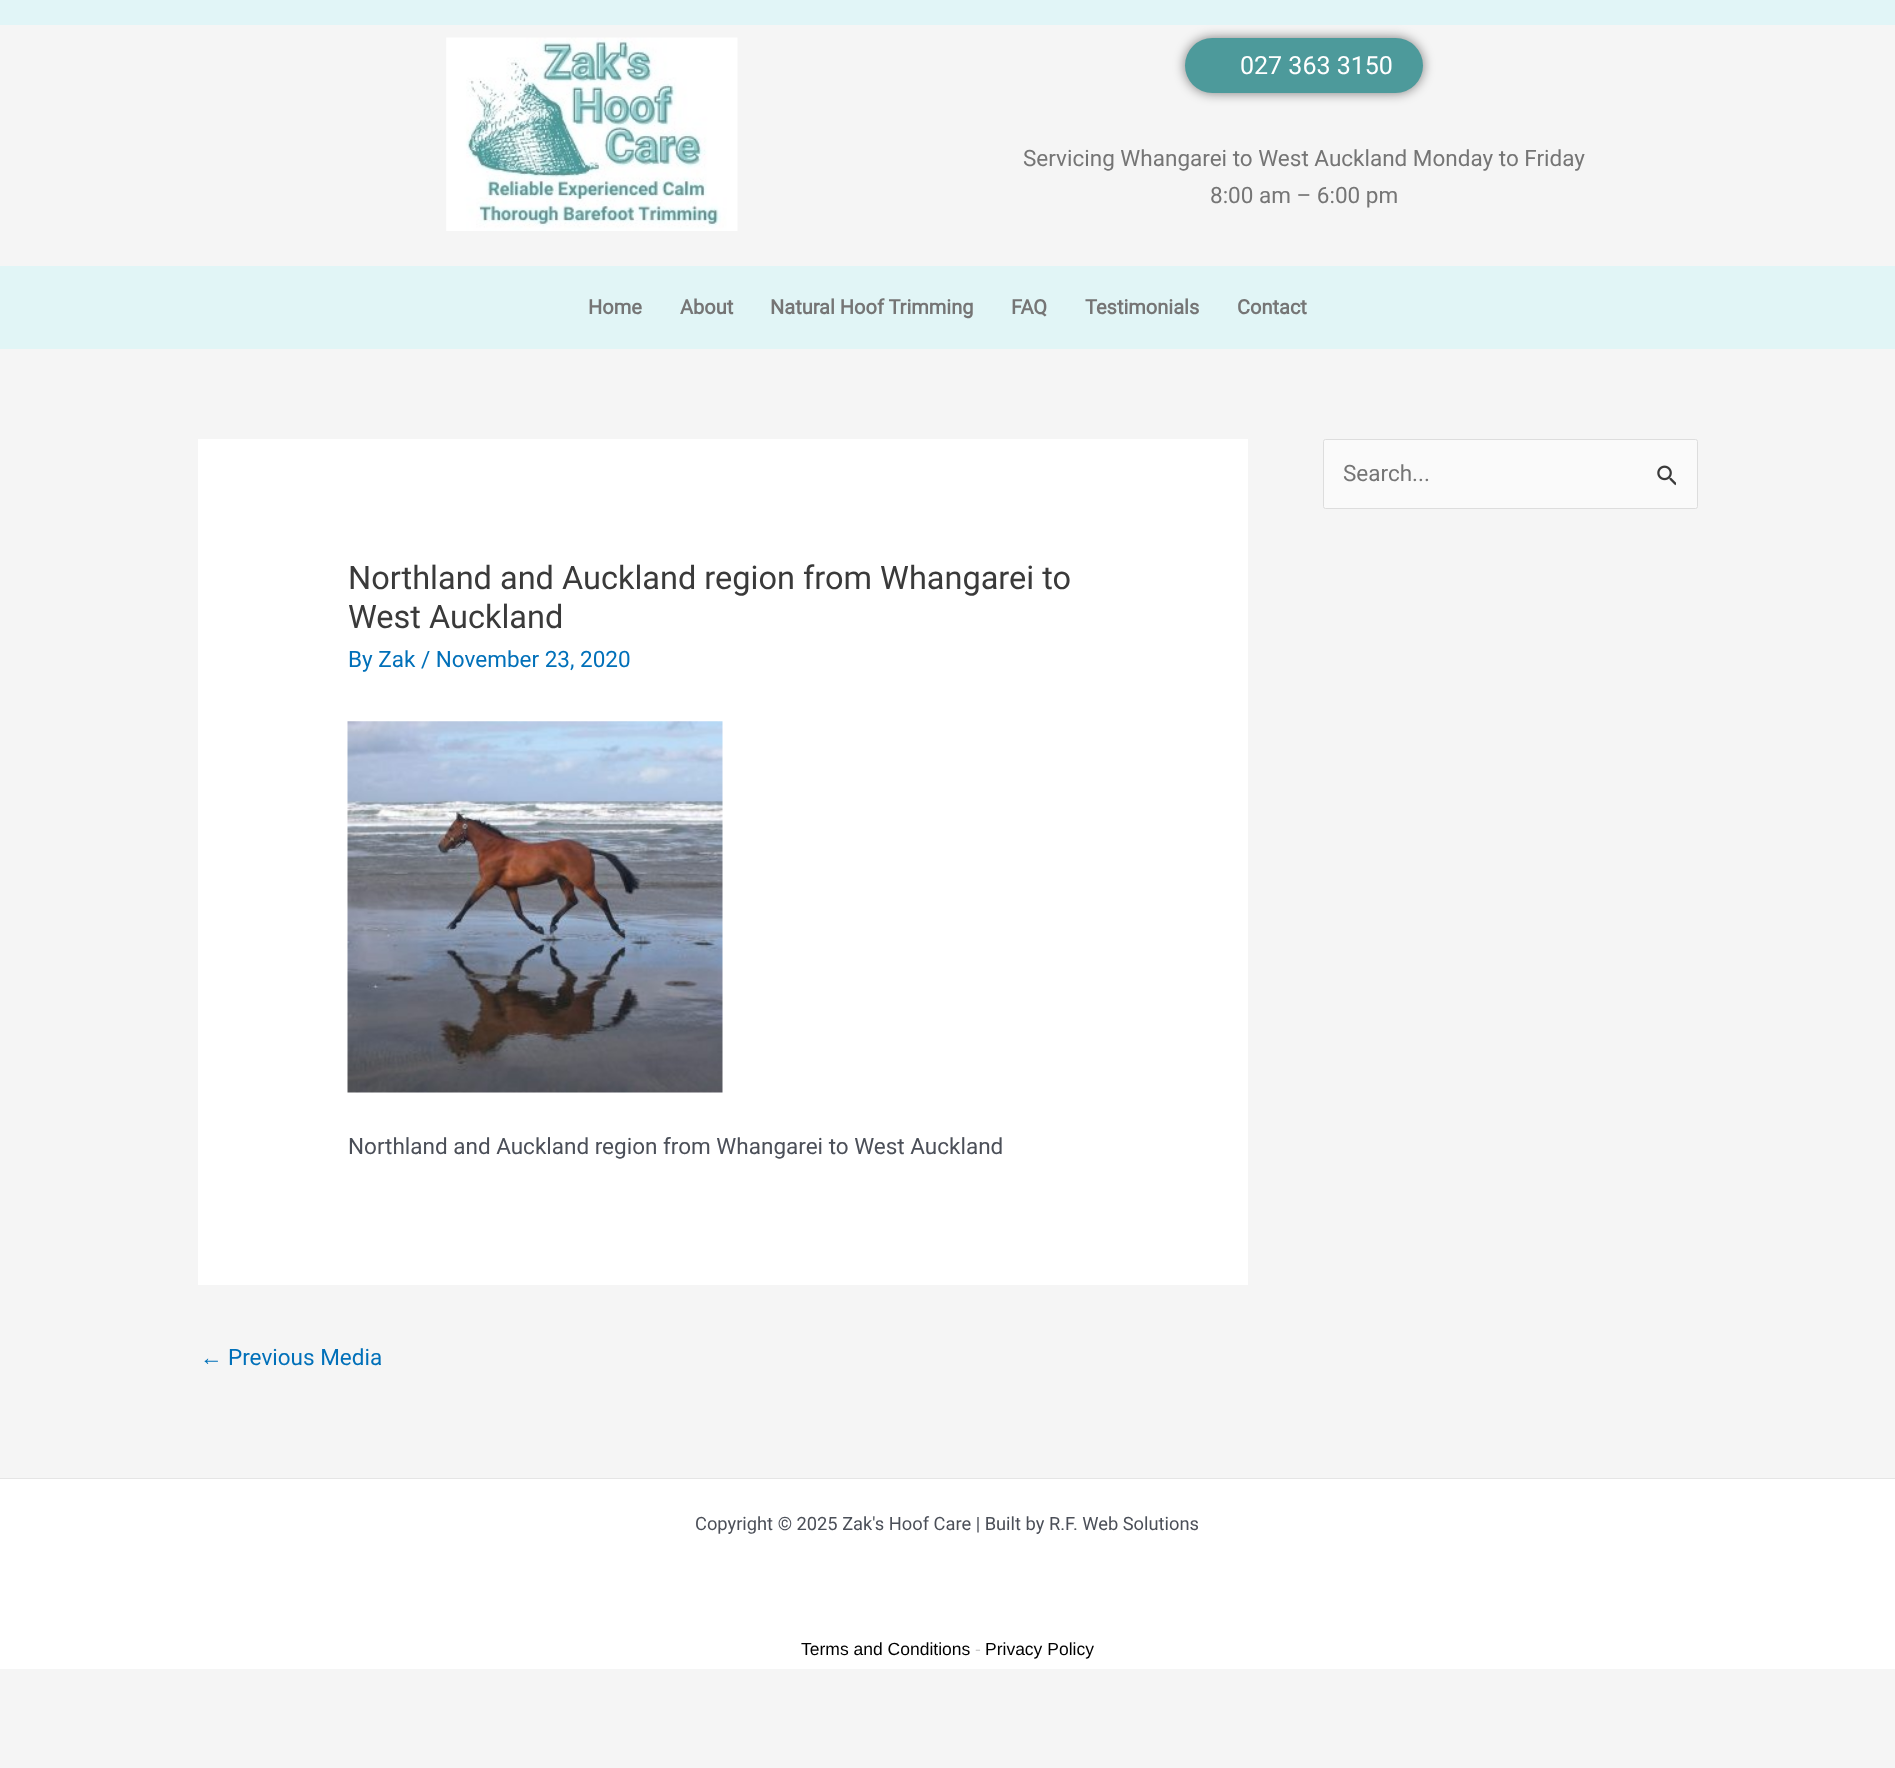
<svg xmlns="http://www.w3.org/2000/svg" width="1895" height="1768">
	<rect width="100%" height="100%" fill="#F5F5F5" />
	<rect x="0" y="0" width="1895" height="25" fill="#E1F5F7" />
	<image x="446" y="37" width="292" height="194" href="assets/img1.png" />
	<rect x="1185" y="38" width="238" height="55" rx="27.5" fill="#000000" fill-opacity="0.5" filter="blur(6px)" />
	<rect x="1185" y="38" width="238" height="55" rx="27.5" fill="#4D9A9B" />
	<text x="1240" y="74" font-family="Roboto" font-size="25" fill="#FFFFFF">027 363 3150</text>
	<g font-family="Roboto" font-size="22.5" fill="#757575">
		<text x="1023" y="166">Servicing Whangarei to West Auckland Monday to Friday</text>
		<text x="1210" y="203">8:00 am – 6:00 pm</text>
	</g>
	<rect x="0" y="266" width="1895" height="83" fill="#E1F5F6" />
	<g font-family="Roboto" font-size="20" font-weight="700" fill="#757575">
		<text x="588" y="314">Home</text>
		<text x="680" y="314">About</text>
		<text x="770" y="314">Natural Hoof Trimming</text>
		<text x="1011" y="314">FAQ</text>
		<text x="1085" y="314">Testimonials</text>
		<text x="1237" y="314">Contact</text>
	</g>
	<rect x="1323.5" y="439.5" width="374" height="69" rx="2" fill="#FAFAFA" stroke="#DDDDDD" />
	<text x="1343" y="481" font-family="Roboto" font-size="22.5" fill="#757575">Search...</text>
	<image x="1657" y="465" width="19" height="21" href="assets/img2.png" />
	<rect x="198" y="439" width="1050" height="846" fill="#FFFFFF" />
	<g font-family="Roboto" font-size="32.5" fill="#3A3A3A">
		<text x="348" y="589">Northland and Auckland region from Whangarei to</text>
		<text x="348" y="628">West Auckland</text>
	</g>
	<text x="348" y="667" font-family="Roboto" font-size="22.5" fill="#0170B9">By Zak / November 23, 2020</text>
	<image x="347" y="721" width="376" height="372" href="assets/img3.png" />
	<text x="348" y="1154" font-family="Roboto" font-size="22.5" fill="#4B4F58">Northland and Auckland region from Whangarei to West Auckland</text>
	<text x="200" y="1365" font-family="Liberation Sans" font-size="22.5" fill="#0170B9">←</text>
	<text x="228" y="1365" font-family="Roboto" font-size="22.5" fill="#0170B9">Previous Media</text>
	<rect x="0" y="1479" width="1895" height="190" fill="#FFFFFF" />
	<rect x="0" y="1478" width="1895" height="1" fill="#E5E5E5" />
	<text x="695" y="1530" font-family="Roboto" font-size="18.3" fill="#4B4F58">Copyright © 2025 Zak's Hoof Care | Built by R.F. Web Solutions</text>
	<text x="801" y="1655" font-family="Liberation Sans" font-size="17.5" fill="#000000">Terms and Conditions</text>
	<text x="975" y="1655" font-family="Liberation Sans" font-size="17.5" fill="#CCCCCC">-</text>
	<text x="985" y="1655" font-family="Liberation Sans" font-size="17.5" fill="#000000">Privacy Policy</text>
</svg>
